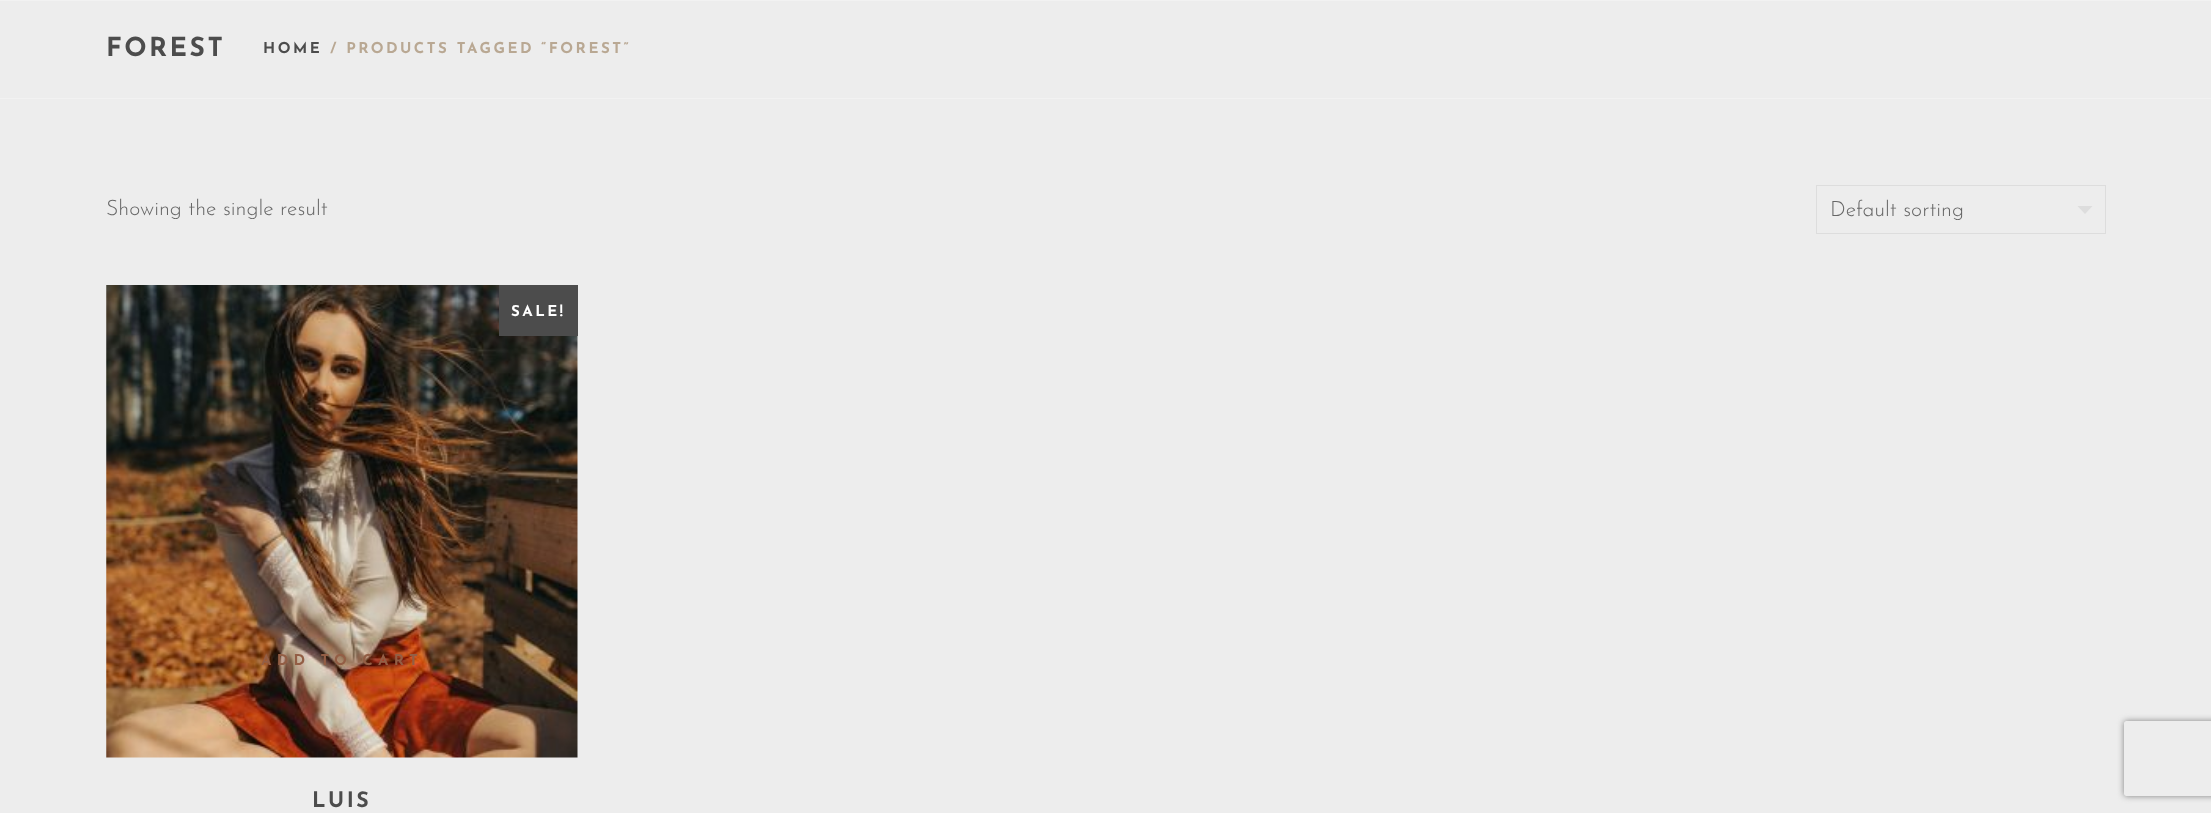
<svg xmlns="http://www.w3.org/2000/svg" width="2211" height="813">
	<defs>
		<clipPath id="clip1"><path d="M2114 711H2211V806H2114ZM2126.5 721H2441.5C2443 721 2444 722 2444 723.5V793.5C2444 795 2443 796 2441.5 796H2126.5C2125 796 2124 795 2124 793.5V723.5C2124 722 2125 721 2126.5 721Z" clip-rule="evenodd" /></clipPath>
	</defs>
	<rect width="100%" height="100%" fill="#EDEDED" />
	<rect x="0" y="0" width="2211" height="1" fill="#F2F2F2" />
	<rect x="0" y="98" width="2211" height="1" fill="#F2F2F2" />
	<text x="106" y="56" font-family="Josefin Sans" font-size="26.25" font-weight="700" letter-spacing="2.5" fill="#4C4C4C">FOREST</text>
	<text x="263" y="53" font-family="Josefin Sans" font-size="15" font-weight="700" letter-spacing="2.5" fill="#4C4C4C">HOME</text>
	<text x="330" y="53" font-family="Josefin Sans" font-size="15" font-weight="700" letter-spacing="2.5" fill="#B9A893">/ PRODUCTS TAGGED “FOREST”</text>
	<text x="106" y="215" font-family="Josefin Sans" font-size="21.25" font-weight="300" fill="#666666">Showing the single result</text>
	<path d="M2077.5 206H2092.5L2085 214Z" fill="#DDDDDD" />
	<rect x="1816.5" y="185.5" width="289" height="48" fill="none" stroke="#DDDDDD" />
	<text x="1830" y="216" font-family="Josefin Sans" font-size="21.25" font-weight="300" fill="#666666">Default sorting</text>
	<image x="106" y="285" width="472" height="473" href="assets/img1.png" />
	<rect x="499" y="285" width="79" height="51" fill="#4C4C4C" />
	<text x="511" y="316" font-family="Josefin Sans" font-size="15" font-weight="700" letter-spacing="2.5" fill="#FFFFFF">SALE!</text>
	<text x="261" y="665" font-family="Josefin Sans" font-size="15" font-weight="700" letter-spacing="5.25" fill="#935E45">ADD TO CART</text>
	<text x="312" y="807" font-family="Josefin Sans" font-size="21.25" font-weight="700" letter-spacing="2.5" fill="#4C4C4C">LUIS</text>
	<g clip-path="url(#clip1)">
		<rect x="2124" y="721" width="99" height="75" rx="2.5" fill="#808080" filter="blur(3px)" />
	</g>
</svg>
